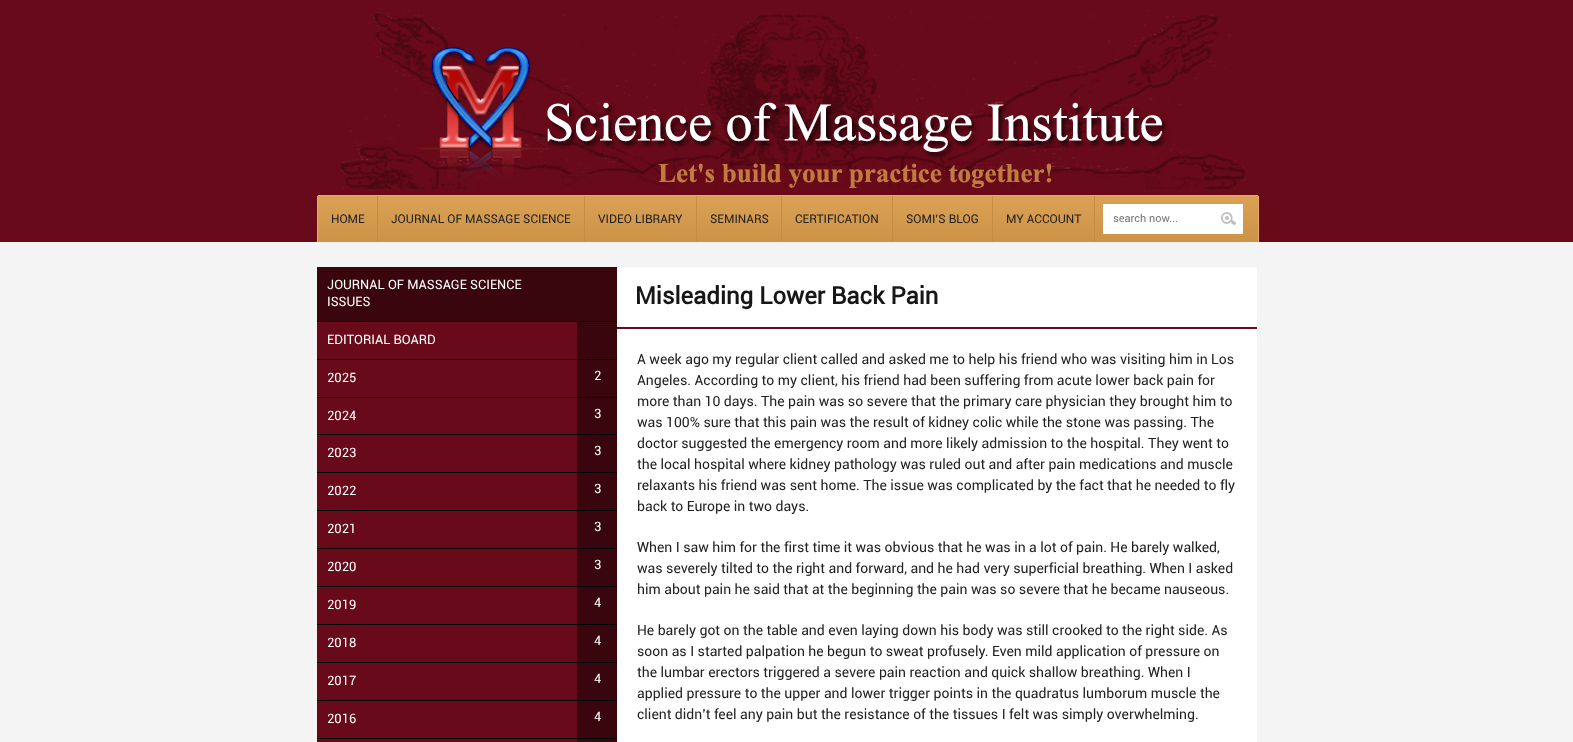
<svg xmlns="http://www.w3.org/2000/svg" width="1573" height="742">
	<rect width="100%" height="100%" fill="#F4F4F4" />
	<rect x="0" y="0" width="1573" height="242" fill="#690A1A" />
	<image x="340" y="10" width="907" height="179" href="assets/img1.png" />
	<path d="M319 195H1257C1258 195 1259 196 1259 197V242H317V197C317 196 318 195 319 195Z" fill="#D89B4B" />
	<image x="318" y="196" width="940" height="46" href="assets/img2.png" />
	<rect x="318" y="195" width="940" height="1" fill="#E6AA5C" />
	<rect x="1258" y="196" width="1" height="46" fill="#E6AA5C" />
	<rect x="317" y="196" width="1" height="46" fill="#E6AA5C" />
	<rect x="377" y="196" width="1" height="46" fill="#C98C3D" />
	<text x="331" y="223" font-family="Roboto" font-size="12" fill="#222222">HOME</text>
	<rect x="584" y="196" width="1" height="46" fill="#C98C3D" />
	<text x="391" y="223" font-family="Roboto" font-size="12" fill="#222222">JOURNAL OF MASSAGE SCIENCE</text>
	<rect x="696" y="196" width="1" height="46" fill="#C98C3D" />
	<text x="598" y="223" font-family="Roboto" font-size="12" fill="#222222">VIDEO LIBRARY</text>
	<rect x="781" y="196" width="1" height="46" fill="#C98C3D" />
	<text x="710" y="223" font-family="Roboto" font-size="12" fill="#222222">SEMINARS</text>
	<rect x="892" y="196" width="1" height="46" fill="#C98C3D" />
	<text x="795" y="223" font-family="Roboto" font-size="12" fill="#222222">CERTIFICATION</text>
	<rect x="992" y="196" width="1" height="46" fill="#C98C3D" />
	<text x="906" y="223" font-family="Roboto" font-size="12" fill="#222222">SOMI’S BLOG</text>
	<rect x="1094" y="196" width="1" height="46" fill="#C98C3D" />
	<text x="1006" y="223" font-family="Roboto" font-size="12" fill="#222222">MY ACCOUNT</text>
	<rect x="1103" y="204" width="140" height="30" fill="#FFFFFF" />
	<image x="1221" y="212" width="15" height="13" href="assets/img3.png" />
	<text x="1113" y="222" font-family="Roboto" font-size="11" fill="#757575">search now...</text>
	<rect x="317" y="267" width="300" height="54" fill="#3A060E" />
	<rect x="317" y="321" width="300" height="1" fill="#000000" />
	<g font-family="Roboto" font-size="13" fill="#FFFFFF">
		<text x="327" y="289">JOURNAL OF MASSAGE SCIENCE</text>
		<text x="327" y="306">ISSUES</text>
	</g>
	<rect x="577" y="322" width="40" height="37" fill="#3A060E" />
	<rect x="317" y="359" width="300" height="1" fill="#000000" />
	<rect x="317" y="322" width="260" height="37" fill="#690A1A" />
	<text x="327" y="344" font-family="Roboto" font-size="13" fill="#FFFFFF">EDITORIAL BOARD</text>
	<rect x="577" y="360" width="40" height="37" fill="#3A060E" />
	<rect x="317" y="397" width="300" height="1" fill="#000000" />
	<rect x="317" y="360" width="260" height="37" fill="#690A1A" />
	<g font-family="Roboto" font-size="13" fill="#FFFFFF">
		<text x="327" y="382">2025</text>
		<text x="594" y="380">2</text>
	</g>
	<rect x="577" y="398" width="40" height="36" fill="#3A060E" />
	<rect x="317" y="434" width="300" height="1" fill="#000000" />
	<rect x="317" y="398" width="260" height="36" fill="#690A1A" />
	<g font-family="Roboto" font-size="13" fill="#FFFFFF">
		<text x="327" y="420">2024</text>
		<text x="594" y="418">3</text>
	</g>
	<rect x="577" y="435" width="40" height="37" fill="#3A060E" />
	<rect x="317" y="472" width="300" height="1" fill="#000000" />
	<rect x="317" y="435" width="260" height="37" fill="#690A1A" />
	<g font-family="Roboto" font-size="13" fill="#FFFFFF">
		<text x="327" y="457">2023</text>
		<text x="594" y="455">3</text>
	</g>
	<rect x="577" y="473" width="40" height="37" fill="#3A060E" />
	<rect x="317" y="510" width="300" height="1" fill="#000000" />
	<rect x="317" y="473" width="260" height="37" fill="#690A1A" />
	<g font-family="Roboto" font-size="13" fill="#FFFFFF">
		<text x="327" y="495">2022</text>
		<text x="594" y="493">3</text>
	</g>
	<rect x="577" y="511" width="40" height="37" fill="#3A060E" />
	<rect x="317" y="548" width="300" height="1" fill="#000000" />
	<rect x="317" y="511" width="260" height="37" fill="#690A1A" />
	<g font-family="Roboto" font-size="13" fill="#FFFFFF">
		<text x="327" y="533">2021</text>
		<text x="594" y="531">3</text>
	</g>
	<rect x="577" y="549" width="40" height="37" fill="#3A060E" />
	<rect x="317" y="586" width="300" height="1" fill="#000000" />
	<rect x="317" y="549" width="260" height="37" fill="#690A1A" />
	<g font-family="Roboto" font-size="13" fill="#FFFFFF">
		<text x="327" y="571">2020</text>
		<text x="594" y="569">3</text>
	</g>
	<rect x="577" y="587" width="40" height="37" fill="#3A060E" />
	<rect x="317" y="624" width="300" height="1" fill="#000000" />
	<rect x="317" y="587" width="260" height="37" fill="#690A1A" />
	<g font-family="Roboto" font-size="13" fill="#FFFFFF">
		<text x="327" y="609">2019</text>
		<text x="594" y="607">4</text>
	</g>
	<rect x="577" y="625" width="40" height="37" fill="#3A060E" />
	<rect x="317" y="662" width="300" height="1" fill="#000000" />
	<rect x="317" y="625" width="260" height="37" fill="#690A1A" />
	<g font-family="Roboto" font-size="13" fill="#FFFFFF">
		<text x="327" y="647">2018</text>
		<text x="594" y="645">4</text>
	</g>
	<rect x="577" y="663" width="40" height="37" fill="#3A060E" />
	<rect x="317" y="700" width="300" height="1" fill="#000000" />
	<rect x="317" y="663" width="260" height="37" fill="#690A1A" />
	<g font-family="Roboto" font-size="13" fill="#FFFFFF">
		<text x="327" y="685">2017</text>
		<text x="594" y="683">4</text>
	</g>
	<rect x="577" y="701" width="40" height="37" fill="#3A060E" />
	<rect x="317" y="738" width="300" height="1" fill="#000000" />
	<rect x="317" y="701" width="260" height="37" fill="#690A1A" />
	<g font-family="Roboto" font-size="13" fill="#FFFFFF">
		<text x="327" y="723">2016</text>
		<text x="594" y="721">4</text>
	</g>
	<rect x="577" y="739" width="40" height="3" fill="#3A060E" />
	<rect x="317" y="739" width="260" height="3" fill="#690A1A" />
	<path d="M619 267H1255C1256 267 1257 268 1257 269V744H617V269C617 268 618 267 619 267Z" fill="#FFFFFF" />
	<rect x="617" y="327" width="640" height="2" fill="#690A1A" />
	<text x="635" y="304" font-family="Roboto" font-size="24" font-weight="700" fill="#161616">Misleading Lower Back Pain</text>
	<g font-family="Roboto" font-size="14" fill="#222222">
		<text x="637" y="364">A week ago my regular client called and asked me to help his friend who was visiting him in Los</text>
		<text x="637" y="385">Angeles. According to my client, his friend had been suffering from acute lower back pain for</text>
		<text x="637" y="406">more than 10 days. The pain was so severe that the primary care physician they brought him to</text>
		<text x="637" y="427">was 100% sure that this pain was the result of kidney colic while the stone was passing. The</text>
		<text x="637" y="448">doctor suggested the emergency room and more likely admission to the hospital. They went to</text>
		<text x="637" y="469">the local hospital where kidney pathology was ruled out and after pain medications and muscle</text>
		<text x="637" y="490">relaxants his friend was sent home. The issue was complicated by the fact that he needed to fly</text>
		<text x="637" y="511">back to Europe in two days.</text>
		<text x="637" y="552">When I saw him for the first time it was obvious that he was in a lot of pain. He barely walked,</text>
		<text x="637" y="573">was severely tilted to the right and forward, and he had very superficial breathing. When I asked</text>
		<text x="637" y="594">him about pain he said that at the beginning the pain was so severe that he became nauseous.</text>
		<text x="637" y="635">He barely got on the table and even laying down his body was still crooked to the right side. As</text>
		<text x="637" y="656">soon as I started palpation he begun to sweat profusely. Even mild application of pressure on</text>
		<text x="637" y="677">the lumbar erectors triggered a severe pain reaction and quick shallow breathing. When I</text>
		<text x="637" y="698">applied pressure to the upper and lower trigger points in the quadratus lumborum muscle the</text>
		<text x="637" y="719">client didn’t feel any pain but the resistance of the tissues I felt was simply overwhelming.</text>
	</g>
</svg>
